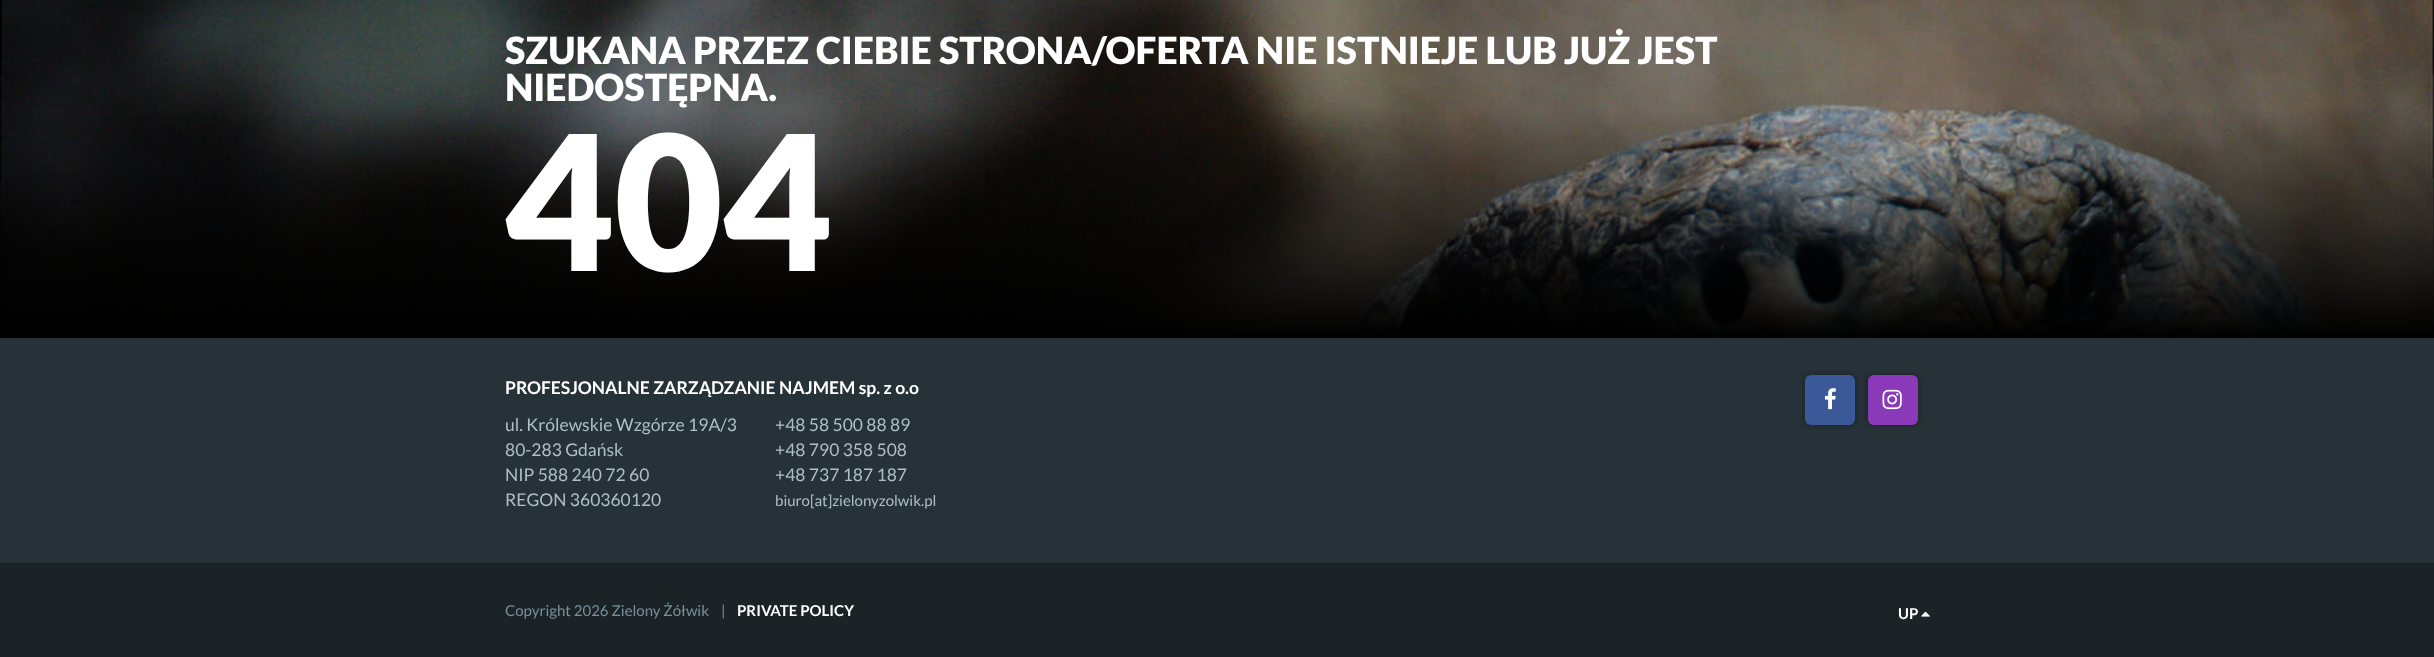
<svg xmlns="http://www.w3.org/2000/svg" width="2434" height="657">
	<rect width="100%" height="100%" fill="#1B2327" />
	<image x="0" y="0" width="2434" height="338" href="assets/img1.png" />
	<g font-family="Lato" font-size="37.5" font-weight="900" fill="#FFFFFF">
		<text x="505" y="64">SZUKANA PRZEZ CIEBIE STRONA/OFERTA NIE ISTNIEJE LUB JUŻ JEST</text>
		<text x="505" y="101">NIEDOSTĘPNA.</text>
	</g>
	<text x="505" y="271" font-family="Lato" font-size="188" font-weight="900" fill="#FFFFFF">404</text>
	<rect x="0" y="338" width="2434" height="225" fill="#263238" />
	<text x="505" y="394" font-family="Lato" font-size="17.5" font-weight="700" fill="#FFFFFF">PROFESJONALNE ZARZĄDZANIE NAJMEM sp. z o.o</text>
	<g font-family="Lato" font-size="17.5" fill="#B0BEC5">
		<text x="505" y="431">ul. Królewskie Wzgórze 19A/3</text>
		<text x="505" y="456">80-283 Gdańsk</text>
		<text x="505" y="481">NIP 588 240 72 60</text>
		<text x="505" y="506">REGON 360360120</text>
		<text x="775" y="431">+48 58 500 88 89</text>
		<text x="775" y="456">+48 790 358 508</text>
		<text x="775" y="481">+48 737 187 187</text>
	</g>
	<text x="775" y="506" font-family="Lato" font-size="15" fill="#B0BEC5">biuro[at]zielonyzolwik.pl</text>
	<rect x="1804" y="374" width="52" height="52" rx="8" fill="#000000" fill-opacity="0.25" filter="blur(2px)" />
	<rect x="1805" y="375" width="50" height="50" rx="6" fill="#3B5998" />
	<image x="1824" y="388" width="12" height="22" href="assets/img2.png" />
	<rect x="1866" y="374" width="53" height="52" rx="8" fill="#000000" fill-opacity="0.25" filter="blur(2px)" />
	<rect x="1868" y="375" width="50" height="50" rx="6" fill="#8A3AB9" />
	<image x="1882" y="389" width="20" height="21" href="assets/img3.png" />
	<g font-family="Lato" font-size="15" fill="#78909C">
		<text x="505" y="616">Copyright 2026 Zielony Żółwik</text>
		<text x="721" y="616">|</text>
	</g>
	<g font-family="Lato" font-size="15" font-weight="700" fill="#FFFFFF">
		<text x="737" y="616">PRIVATE POLICY</text>
		<text x="1898" y="619">UP</text>
	</g>
	<image x="1921" y="611" width="9" height="6" href="assets/img4.png" />
</svg>
